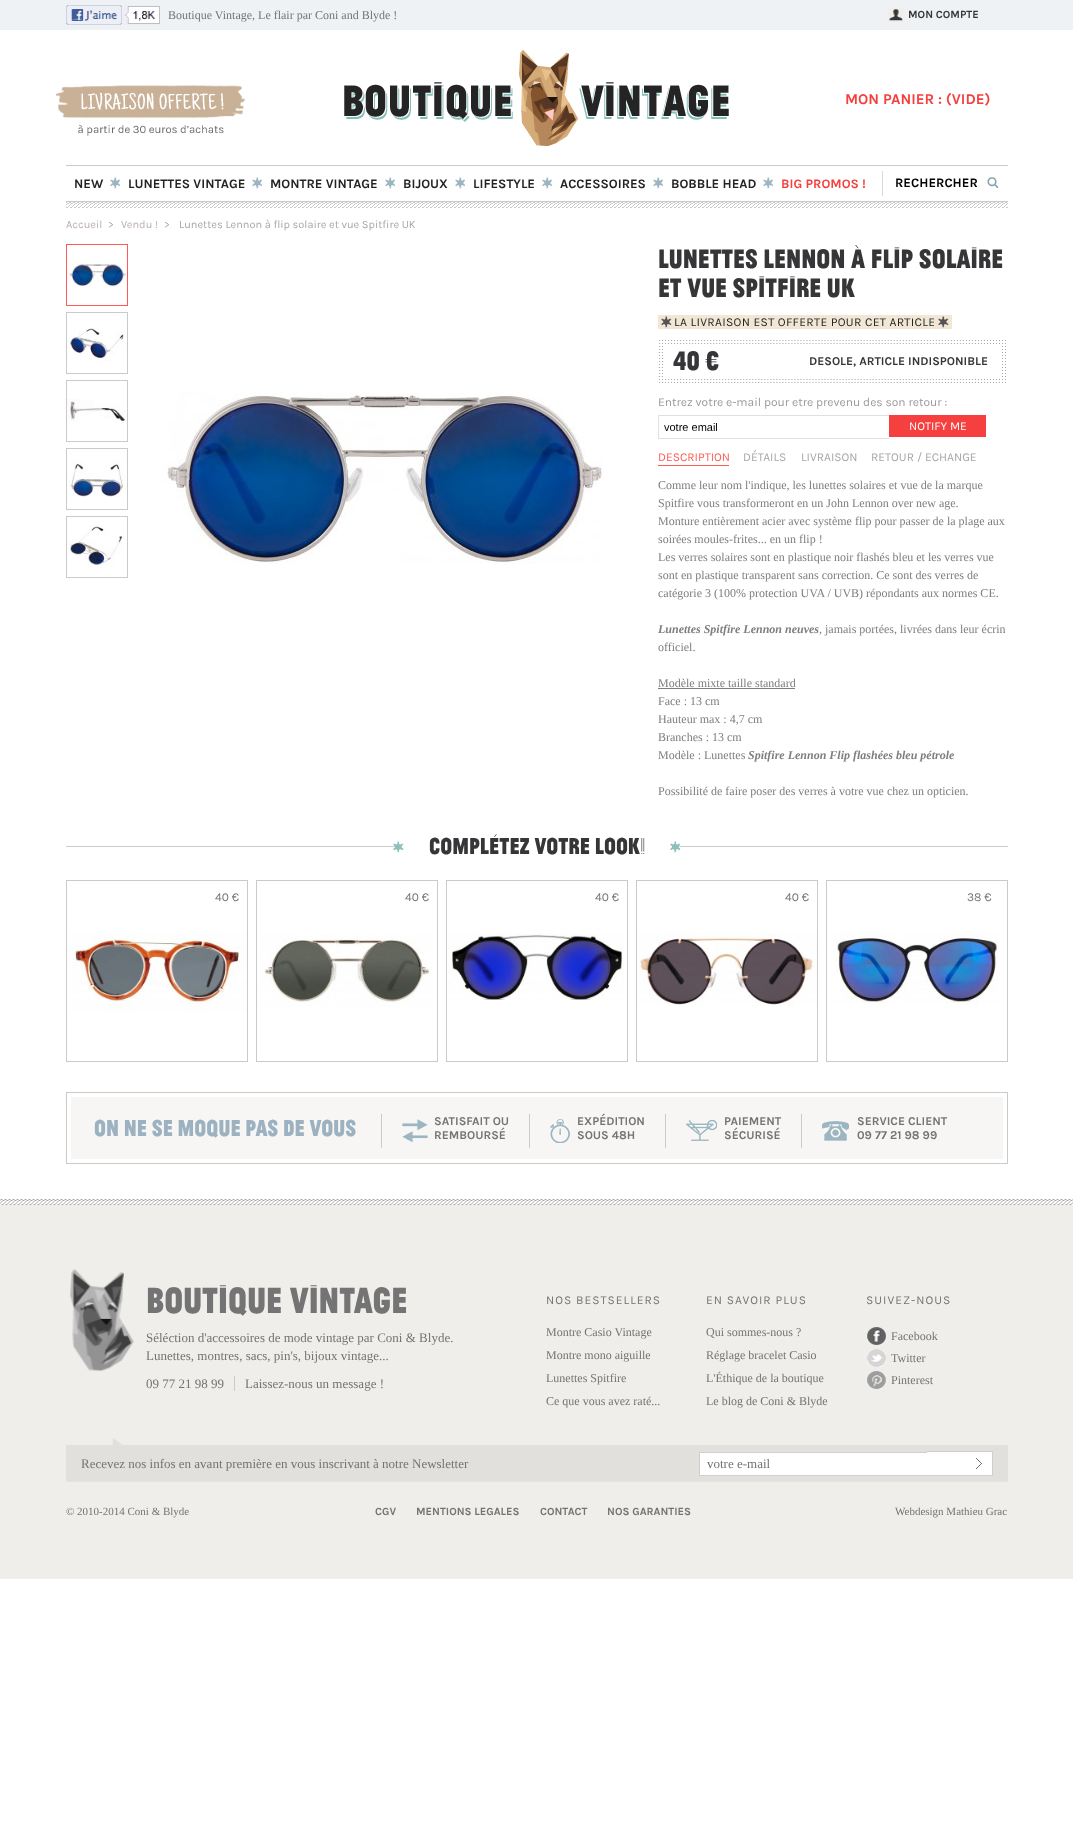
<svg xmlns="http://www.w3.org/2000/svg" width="1073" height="1826">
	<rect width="100%" height="100%" fill="#FFFFFF" />
	<rect x="0" y="0" width="1073" height="30" fill="#EFF2F4" />
	<image x="66" y="5" width="94" height="20" href="assets/img1.png" />
	<text x="168" y="19" font-family="Liberation Serif" font-size="12" fill="#747475">Boutique Vintage, Le flair par Coni and Blyde !</text>
	<image x="888" y="8" width="15" height="14" href="assets/img2.png" />
	<text x="908" y="18" font-family="Karla" font-size="11" font-weight="700" fill="#363638">MON COMPTE</text>
	<image x="66" y="202" width="942" height="6" href="assets/img3.png" />
	<image x="56" y="85" width="190" height="51" href="assets/img4.png" />
	<image x="344" y="50" width="385" height="96" href="assets/img5.png" />
	<text x="845" y="104" font-family="Karla" font-size="15" font-weight="700" fill="#F5403F">MON PANIER : (VIDE)</text>
	<rect x="66" y="165" width="942" height="1" fill="#CACACA" />
	<rect x="66" y="201" width="942" height="1" fill="#CACACA" />
	<image x="110" y="177" width="10" height="12" href="assets/img6.png" />
	<text x="74" y="188" font-family="Karla" font-size="13" font-weight="700" fill="#242425">NEW</text>
	<image x="252" y="177" width="10" height="12" href="assets/img6.png" />
	<text x="128" y="188" font-family="Karla" font-size="13" font-weight="700" fill="#242425">LUNETTES VINTAGE</text>
	<image x="385" y="177" width="10" height="12" href="assets/img6.png" />
	<text x="270" y="188" font-family="Karla" font-size="13" font-weight="700" fill="#242425">MONTRE VINTAGE</text>
	<image x="455" y="177" width="10" height="12" href="assets/img6.png" />
	<text x="403" y="188" font-family="Karla" font-size="13" font-weight="700" fill="#242425">BIJOUX</text>
	<image x="542" y="177" width="10" height="12" href="assets/img6.png" />
	<text x="473" y="188" font-family="Karla" font-size="13" font-weight="700" fill="#242425">LIFESTYLE</text>
	<image x="653" y="177" width="10" height="12" href="assets/img6.png" />
	<text x="560" y="188" font-family="Karla" font-size="13" font-weight="700" fill="#242425">ACCESSOIRES</text>
	<image x="763" y="177" width="10" height="12" href="assets/img6.png" />
	<text x="671" y="188" font-family="Karla" font-size="13" font-weight="700" fill="#242425">BOBBLE HEAD</text>
	<rect x="882" y="171" width="1" height="25" fill="#D9D9D9" />
	<text x="781" y="188" font-family="Karla" font-size="13" font-weight="700" fill="#F5403F">BIG PROMOS !</text>
	<image x="987" y="177" width="12" height="12" href="assets/img7.png" />
	<text x="895" y="187" font-family="Karla" font-size="13" font-weight="700" fill="#000000">RECHERCHER</text>
	<text x="66" y="228" font-family="Karla" font-size="11" fill="#BBAFAF">Accueil</text>
	<text x="108" y="228" font-family="Karla" font-size="11" fill="#A6A6A7">&gt;</text>
	<text x="121" y="228" font-family="Karla" font-size="11" fill="#BBAFAF">Vendu !</text>
	<g font-family="Karla" font-size="11" fill="#A6A6A7">
		<text x="164" y="228">&gt;</text>
		<text x="179" y="228">Lunettes Lennon à flip solaire et vue Spitfire UK</text>
	</g>
	<rect x="66.5" y="244.5" width="61" height="61" fill="none" stroke="#FF5B54" />
	<image x="67" y="257" width="60" height="36" href="assets/img8.png" />
	<rect x="66.5" y="312.5" width="61" height="61" fill="none" stroke="#CACACA" />
	<image x="67" y="328" width="58" height="33" href="assets/img9.png" />
	<rect x="66.5" y="380.5" width="61" height="61" fill="none" stroke="#CACACA" />
	<image x="67" y="399" width="58" height="24" href="assets/img10.png" />
	<rect x="66.5" y="448.5" width="61" height="61" fill="none" stroke="#CACACA" />
	<image x="67" y="461" width="60" height="36" href="assets/img11.png" />
	<rect x="66.5" y="516.5" width="61" height="61" fill="none" stroke="#CACACA" />
	<image x="67" y="525" width="60" height="40" href="assets/img12.png" />
	<image x="163" y="392" width="441" height="172" href="assets/img13.png" />
	<g font-family="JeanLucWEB" font-size="28" font-weight="100" fill="#363638">
		<text x="658" y="268">Lunettes Lennon à flip solaire</text>
		<text x="658" y="297">et vue Spitfire UK</text>
	</g>
	<image x="658" y="315" width="294" height="14" href="assets/img14.png" />
	<image x="659" y="340" width="347" height="43" href="assets/img15.png" />
	<text x="673" y="370" font-family="JeanLucWEB" font-size="28" font-weight="100" fill="#363638">40 €</text>
	<text x="809" y="365" font-family="Karla" font-size="12" font-weight="700" fill="#363638">DESOLE, ARTICLE INDISPONIBLE</text>
	<text x="658" y="406" font-family="Karla" font-size="12" fill="#999999">Entrez votre e-mail pour etre prevenu des son retour :</text>
	<rect x="658" y="415" width="231" height="1" fill="#E0E0E0" />
	<rect x="658" y="438" width="231" height="1" fill="#E0E0E0" />
	<rect x="658" y="415" width="1" height="24" fill="#E0E0E0" />
	<text x="664" y="431" font-family="Liberation Sans" font-size="11" fill="#000000">votre email</text>
	<rect x="889" y="415" width="97" height="22" fill="#F5403F" />
	<text x="909" y="430" font-family="Karla" font-size="12" fill="#FFFFFF">NOTIFY ME</text>
	<rect x="658" y="465" width="71" height="1" fill="#FF5B54" />
	<text x="658" y="461" font-family="Karla" font-size="12" fill="#FF5B54">DESCRIPTION</text>
	<g font-family="Karla" font-size="12" fill="#A6A6A7">
		<text x="743" y="461">DÉTAILS</text>
		<text x="801" y="461">LIVRAISON</text>
		<text x="871" y="461">RETOUR / ECHANGE</text>
	</g>
	<g font-family="Liberation Serif" font-size="12" fill="#7E7E7E">
		<text x="658" y="489">Comme leur nom l'indique, les lunettes solaires et vue de la marque</text>
		<text x="658" y="507">Spitfire vous transformeront en un John Lennon over new age.</text>
		<text x="658" y="525">Monture entièrement acier avec système flip pour passer de la plage aux</text>
		<text x="658" y="543">soirées moules-frites... en un flip !</text>
		<text x="658" y="561">Les verres solaires sont en plastique noir flashés bleu et les verres vue</text>
		<text x="658" y="579">sont en plastique transparent sans correction. Ce sont des verres de</text>
		<text x="658" y="597">catégorie 3 (100% protection UVA / UVB) répondants aux normes CE.</text>
	</g>
	<text x="658" y="633" font-family="Liberation Serif" font-size="12" font-weight="700" font-style="italic" fill="#7E7E7E">Lunettes Spitfire Lennon neuves</text>
	<g font-family="Liberation Serif" font-size="12" fill="#7E7E7E">
		<text x="819" y="633">, jamais portées, livrées dans leur écrin</text>
		<text x="658" y="651">officiel.</text>
		<text x="658" y="687">Modèle mixte taille standard</text>
	</g>
	<rect x="658" y="688" width="137" height="1" fill="#7E7E7E" />
	<g font-family="Liberation Serif" font-size="12" fill="#7E7E7E">
		<text x="658" y="705">Face : 13 cm</text>
		<text x="658" y="723">Hauteur max : 4,7 cm</text>
		<text x="658" y="741">Branches : 13 cm</text>
		<text x="658" y="759">Modèle : Lunettes</text>
	</g>
	<text x="748" y="759" font-family="Liberation Serif" font-size="12" font-weight="700" font-style="italic" fill="#7E7E7E">Spitfire Lennon Flip flashées bleu pétrole</text>
	<text x="658" y="795" font-family="Liberation Serif" font-size="12" fill="#7E7E7E">Possibilité de faire poser des verres à votre vue chez un opticien.</text>
	<rect x="66" y="846" width="942" height="1" fill="#CBCBCB" />
	<image x="393" y="841" width="287" height="12" href="assets/img16.png" />
	<text x="429" y="854" font-family="JeanLucWEB" font-size="24" font-weight="100" fill="#363638">complétez votre look!!</text>
	<rect x="66.5" y="880.5" width="181" height="181" fill="none" stroke="#CACACA" />
	<image x="67" y="933" width="180" height="79" href="assets/img17.png" />
	<text x="215" y="901" font-family="Karla" font-size="12" fill="#747475">40 €</text>
	<rect x="256.5" y="880.5" width="181" height="181" fill="none" stroke="#CACACA" />
	<image x="263" y="934" width="169" height="73" href="assets/img18.png" />
	<text x="405" y="901" font-family="Karla" font-size="12" fill="#747475">40 €</text>
	<rect x="446.5" y="880.5" width="181" height="181" fill="none" stroke="#CACACA" />
	<image x="448" y="933" width="176" height="67" href="assets/img19.png" />
	<text x="595" y="901" font-family="Karla" font-size="12" fill="#747475">40 €</text>
	<rect x="636.5" y="880.5" width="181" height="181" fill="none" stroke="#CACACA" />
	<image x="637" y="933" width="180" height="73" href="assets/img20.png" />
	<text x="785" y="901" font-family="Karla" font-size="12" fill="#747475">40 €</text>
	<rect x="826.5" y="880.5" width="181" height="181" fill="none" stroke="#CACACA" />
	<image x="834" y="933" width="164" height="72" href="assets/img21.png" />
	<text x="967" y="901" font-family="Karla" font-size="12" fill="#747475">38 €</text>
	<rect x="66.5" y="1092.5" width="941" height="71" fill="none" stroke="#CACACA" />
	<rect x="71" y="1097" width="932" height="62" fill="#F7F6F4" />
	<rect x="381" y="1114" width="1" height="34" fill="#CACACA" />
	<text x="94" y="1136" font-family="JeanLucWEB" font-size="24" font-weight="100" fill="#9CB2C1">ON NE SE MOQUE PAS DE VOUS</text>
	<image x="402" y="1119" width="26" height="23" href="assets/img22.png" />
	<rect x="529" y="1114" width="1" height="34" fill="#CACACA" />
	<g font-family="Karla" font-size="12" font-weight="700" fill="#747475">
		<text x="434" y="1125">SATISFAIT OU</text>
		<text x="434" y="1139">REMBOURSÉ</text>
	</g>
	<image x="550" y="1119" width="20" height="24" href="assets/img23.png" />
	<rect x="665" y="1114" width="1" height="34" fill="#CACACA" />
	<g font-family="Karla" font-size="12" font-weight="700" fill="#747475">
		<text x="577" y="1125">EXPÉDITION</text>
		<text x="577" y="1139">SOUS 48H</text>
	</g>
	<image x="686" y="1120" width="31" height="21" href="assets/img24.png" />
	<rect x="801" y="1114" width="1" height="34" fill="#CACACA" />
	<g font-family="Karla" font-size="12" font-weight="700" fill="#747475">
		<text x="724" y="1125">PAIEMENT</text>
		<text x="724" y="1139">SÉCURISÉ</text>
	</g>
	<image x="822" y="1121" width="27" height="20" href="assets/img25.png" />
	<g font-family="Karla" font-size="12" font-weight="700" fill="#747475">
		<text x="857" y="1125">SERVICE CLIENT</text>
		<text x="857" y="1139">09 77 21 98 99</text>
	</g>
	<rect x="0" y="1205" width="1073" height="374" fill="#F0EEEA" />
	<image x="0" y="1199" width="1073" height="6" href="assets/img26.png" />
	<image x="70" y="1269" width="64" height="102" href="assets/img27.png" />
	<text x="146" y="1313" font-family="JeanLucWEB" font-size="38" font-weight="100" fill="#747475">BOUTIQUE VINTAGE</text>
	<g font-family="Liberation Serif" font-size="13" fill="#747475">
		<text x="146" y="1342">Séléction d'accessoires de mode vintage par Coni &amp; Blyde.</text>
		<text x="146" y="1360">Lunettes, montres, sacs, pin's, bijoux vintage...</text>
		<text x="146" y="1388">09 77 21 98 99</text>
		<text x="245" y="1388">Laissez-nous un message !</text>
	</g>
	<rect x="234" y="1376" width="1" height="15" fill="#CACACA" />
	<text x="546" y="1304" font-family="Karla" font-size="12" letter-spacing="1" fill="#747475">NOS BESTSELLERS</text>
	<g font-family="Liberation Serif" font-size="12" fill="#747475">
		<text x="546" y="1336">Montre Casio Vintage</text>
		<text x="546" y="1359">Montre mono aiguille</text>
		<text x="546" y="1382">Lunettes Spitfire</text>
		<text x="546" y="1405">Ce que vous avez raté...</text>
	</g>
	<text x="706" y="1304" font-family="Karla" font-size="12" letter-spacing="1" fill="#747475">EN SAVOIR PLUS</text>
	<g font-family="Liberation Serif" font-size="12" fill="#747475">
		<text x="706" y="1336">Qui sommes-nous ?</text>
		<text x="706" y="1359">Réglage bracelet Casio</text>
		<text x="706" y="1382">L'Éthique de la boutique</text>
		<text x="706" y="1405">Le blog de Coni &amp; Blyde</text>
	</g>
	<text x="866" y="1304" font-family="Karla" font-size="12" letter-spacing="1" fill="#747475">SUIVEZ-NOUS</text>
	<image x="867" y="1327" width="19" height="18" href="assets/img28.png" />
	<text x="891" y="1340" font-family="Liberation Serif" font-size="12" fill="#747475">Facebook</text>
	<image x="867" y="1349" width="19" height="18" href="assets/img29.png" />
	<text x="891" y="1362" font-family="Liberation Serif" font-size="12" fill="#747475">Twitter</text>
	<image x="867" y="1371" width="19" height="18" href="assets/img30.png" />
	<text x="891" y="1384" font-family="Liberation Serif" font-size="12" fill="#747475">Pinterest</text>
	<image x="66" y="1438" width="942" height="44" href="assets/img31.png" />
	<text x="81" y="1468" font-family="Liberation Serif" font-size="13" fill="#747475">Recevez nos infos en avant première en vous inscrivant à notre Newsletter</text>
	<rect x="700" y="1453" width="227" height="22" fill="#FFFFFF" />
	<rect x="699" y="1452" width="228" height="1" fill="#CFCFCF" />
	<rect x="699" y="1475" width="228" height="1" fill="#CFCFCF" />
	<rect x="699" y="1452" width="1" height="24" fill="#CFCFCF" />
	<text x="707" y="1468" font-family="Liberation Serif" font-size="13" fill="#747475">votre e-mail</text>
	<rect x="927" y="1452" width="65" height="23" fill="#FFFFFF" />
	<image x="976" y="1458" width="6" height="11" href="assets/img32.png" />
	<rect x="927" y="1451" width="66" height="1" fill="#CFCFCF" />
	<rect x="992" y="1451" width="1" height="25" fill="#CFCFCF" />
	<rect x="927" y="1475" width="66" height="1" fill="#CFCFCF" />
	<text x="66" y="1515" font-family="Liberation Serif" font-size="11" fill="#747475">© 2010-2014 Coni &amp; Blyde</text>
	<g font-family="Karla" font-size="11" font-weight="700" fill="#747475">
		<text x="375" y="1515">CGV</text>
		<text x="416" y="1515">MENTIONS LEGALES</text>
		<text x="540" y="1515">CONTACT</text>
		<text x="607" y="1515">NOS GARANTIES</text>
	</g>
	<text x="895" y="1515" font-family="Liberation Serif" font-size="11" fill="#747475">Webdesign Mathieu Grac</text>
</svg>
